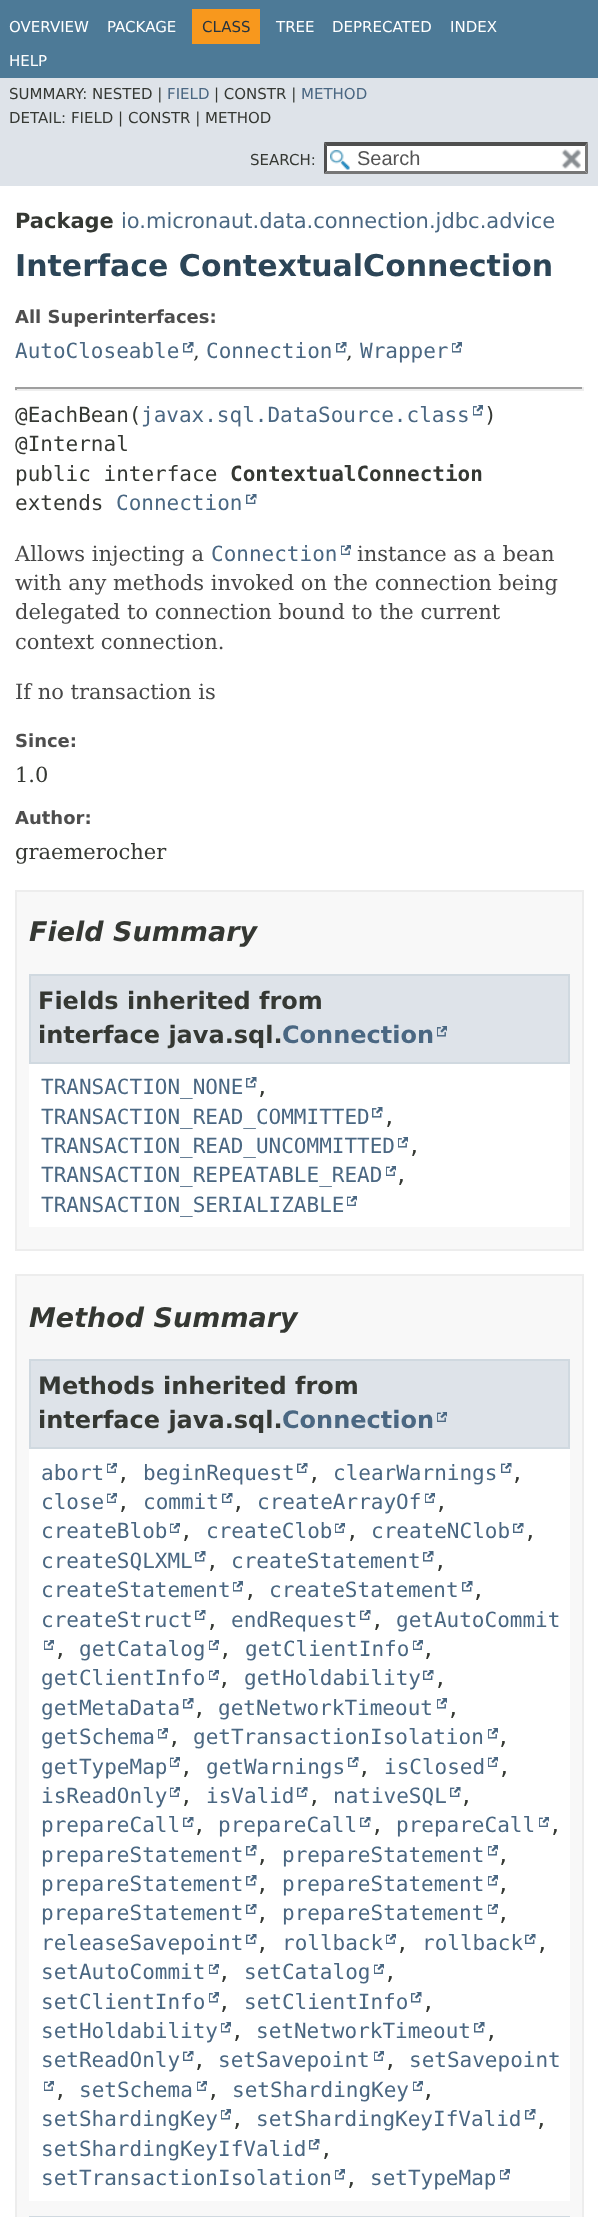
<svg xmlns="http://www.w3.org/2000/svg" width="598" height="2217">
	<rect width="100%" height="100%" fill="#FFFFFF" />
	<rect x="0" y="0" width="598" height="78" fill="#4D7A97" />
	<g font-family="DejaVu Sans" font-size="15" fill="#FFFFFF">
		<text x="9" y="32">OVERVIEW</text>
		<text x="107" y="32">PACKAGE</text>
	</g>
	<rect x="192" y="9" width="68" height="35" fill="#F8981D" />
	<text x="202" y="32" font-family="DejaVu Sans" font-size="15" fill="#253441">CLASS</text>
	<g font-family="DejaVu Sans" font-size="15" fill="#FFFFFF">
		<text x="276" y="32">TREE</text>
		<text x="332" y="32">DEPRECATED</text>
		<text x="450" y="32">INDEX</text>
		<text x="9" y="66">HELP</text>
	</g>
	<rect x="0" y="78" width="598" height="108" fill="#DEE3E9" />
	<text x="9" y="99" font-family="DejaVu Sans" font-size="15" fill="#353833">SUMMARY: NESTED |</text>
	<text x="167" y="99" font-family="DejaVu Sans" font-size="15" fill="#4A6782">FIELD</text>
	<text x="214" y="99" font-family="DejaVu Sans" font-size="15" fill="#353833">| CONSTR |</text>
	<text x="301" y="99" font-family="DejaVu Sans" font-size="15" fill="#4A6782">METHOD</text>
	<g font-family="DejaVu Sans" font-size="15" fill="#353833">
		<text x="9" y="123">DETAIL: FIELD | CONSTR | METHOD</text>
		<text x="250" y="165">SEARCH:</text>
	</g>
	<rect x="324" y="143" width="264" height="31" fill="#FFFFFF" />
	<image x="330" y="150" width="20" height="20" href="assets/img1.png" />
	<path d="M324 142H588L585 146H327Z" fill="#4F4F4F" />
	<path d="M588 142.5V174L585 171V145.5Z" fill="#767676" />
	<path d="M588 174H324L327 171H585Z" fill="#767676" />
	<path d="M324 174V142.5L327 145.5V171Z" fill="#4F4F4F" />
	<text x="357" y="165" font-family="Liberation Sans" font-size="20" fill="#545454">Search</text>
	<image x="561" y="149" width="20" height="20" href="assets/img2.png" />
	<text x="15" y="228" font-family="DejaVu Sans" font-size="21" font-weight="700" fill="#353833">Package</text>
	<text x="121" y="228" font-family="DejaVu Sans" font-size="21" fill="#4A6782">io.micronaut.data.connection.jdbc.advice</text>
	<text x="15" y="276" font-family="DejaVu Sans" font-size="30" font-weight="700" fill="#2C4557">Interface ContextualConnection</text>
	<text x="15" y="323" font-family="DejaVu Sans" font-size="18" font-weight="700" fill="#4E4E4E">All Superinterfaces:</text>
	<text x="15" y="358" font-family="DejaVu Sans Mono" font-size="21" fill="#4A6782">AutoCloseable</text>
	<image x="183" y="342" width="11" height="11" href="assets/img3.png" />
	<text x="193" y="358" font-family="DejaVu Serif" font-size="21" fill="#353833">,</text>
	<text x="206" y="358" font-family="DejaVu Sans Mono" font-size="21" fill="#4A6782">Connection</text>
	<image x="336" y="342" width="11" height="11" href="assets/img3.png" />
	<text x="346" y="358" font-family="DejaVu Serif" font-size="21" fill="#353833">,</text>
	<text x="360" y="358" font-family="DejaVu Sans Mono" font-size="21" fill="#4A6782">Wrapper</text>
	<image x="452" y="342" width="10" height="11" href="assets/img4.png" />
	<rect x="15" y="387" width="569" height="2" fill="#9F9F9F" />
	<rect x="582" y="387" width="2" height="3" fill="#EEEEEE" />
	<rect x="15" y="389" width="569" height="2" fill="#EEEEEE" />
	<rect x="15" y="387" width="2" height="3" fill="#9F9F9F" />
	<text x="15" y="422" font-family="DejaVu Sans Mono" font-size="21" fill="#353833">@EachBean(</text>
	<text x="141" y="422" font-family="DejaVu Sans Mono" font-size="21" fill="#4A6782">javax.sql.DataSource.class</text>
	<image x="473" y="405" width="10" height="11" href="assets/img4.png" />
	<g font-family="DejaVu Sans Mono" font-size="21" fill="#353833">
		<text x="484" y="422">)</text>
		<text x="15" y="451">@Internal</text>
		<text x="15" y="481">public interface</text>
	</g>
	<text x="230" y="481" font-family="DejaVu Sans Mono" font-size="21" font-weight="700" fill="#353833">ContextualConnection</text>
	<text x="15" y="510" font-family="DejaVu Sans Mono" font-size="21" fill="#353833">extends</text>
	<text x="116" y="510" font-family="DejaVu Sans Mono" font-size="21" fill="#4A6782">Connection</text>
	<image x="246" y="494" width="11" height="10" href="assets/img5.png" />
	<text x="15" y="561" font-family="DejaVu Serif" font-size="21" fill="#474747">Allows injecting a</text>
	<text x="211" y="561" font-family="DejaVu Sans Mono" font-size="21" fill="#4A6782">Connection</text>
	<image x="341" y="545" width="10" height="10" href="assets/img6.png" />
	<g font-family="DejaVu Serif" font-size="21" fill="#474747">
		<text x="357" y="561">instance as a bean</text>
		<text x="15" y="590">with any methods invoked on the connection being</text>
		<text x="15" y="619">delegated to connection bound to the current</text>
		<text x="15" y="649">context connection.</text>
		<text x="15" y="699">If no transaction is</text>
	</g>
	<text x="15" y="747" font-family="DejaVu Sans" font-size="18" font-weight="700" fill="#4E4E4E">Since:</text>
	<text x="15" y="782" font-family="DejaVu Serif" font-size="21" fill="#353833">1.0</text>
	<text x="15" y="824" font-family="DejaVu Sans" font-size="18" font-weight="700" fill="#4E4E4E">Author:</text>
	<text x="15" y="859" font-family="DejaVu Serif" font-size="21" fill="#353833">graemerocher</text>
	<rect x="16" y="891" width="567" height="359" fill="#F8F8F8" stroke="#EDEDED" stroke-width="2" />
	<text x="29" y="941" font-family="DejaVu Sans" font-size="27" font-weight="700" font-style="italic" fill="#353833">Field Summary</text>
	<rect x="29" y="1064" width="541" height="163" fill="#FFFFFF" />
	<rect x="30" y="975" width="539" height="88" fill="#DEE3E9" stroke="#D0D9E0" stroke-width="2" />
	<g font-family="DejaVu Sans" font-size="24" font-weight="700" fill="#353833">
		<text x="38" y="1009">Fields inherited from</text>
		<text x="38" y="1043">interface java.sql.</text>
	</g>
	<text x="282" y="1043" font-family="DejaVu Sans" font-size="24" font-weight="700" fill="#4A6782">Connection</text>
	<image x="437" y="1026" width="10" height="11" href="assets/img7.png" />
	<text x="41" y="1094" font-family="DejaVu Sans Mono" font-size="21" fill="#4A6782">TRANSACTION_NONE</text>
	<image x="246" y="1077" width="11" height="11" href="assets/img3.png" />
	<text x="256" y="1094" font-family="DejaVu Sans Mono" font-size="21" fill="#353833">,</text>
	<text x="41" y="1124" font-family="DejaVu Sans Mono" font-size="21" fill="#4A6782">TRANSACTION_READ_COMMITTED</text>
	<image x="372" y="1107" width="11" height="11" href="assets/img3.png" />
	<text x="383" y="1124" font-family="DejaVu Sans Mono" font-size="21" fill="#353833">,</text>
	<text x="41" y="1153" font-family="DejaVu Sans Mono" font-size="21" fill="#4A6782">TRANSACTION_READ_UNCOMMITTED</text>
	<image x="398" y="1137" width="10" height="11" href="assets/img4.png" />
	<text x="408" y="1153" font-family="DejaVu Sans Mono" font-size="21" fill="#353833">,</text>
	<text x="41" y="1182" font-family="DejaVu Sans Mono" font-size="21" fill="#4A6782">TRANSACTION_REPEATABLE_READ</text>
	<image x="386" y="1166" width="10" height="10" href="assets/img6.png" />
	<text x="395" y="1182" font-family="DejaVu Sans Mono" font-size="21" fill="#353833">,</text>
	<text x="41" y="1212" font-family="DejaVu Sans Mono" font-size="21" fill="#4A6782">TRANSACTION_SERIALIZABLE</text>
	<image x="347" y="1196" width="10" height="10" href="assets/img6.png" />
	<rect x="16" y="1275" width="567" height="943" fill="#F8F8F8" stroke="#EDEDED" stroke-width="2" />
	<text x="29" y="1327" font-family="DejaVu Sans" font-size="27" font-weight="700" font-style="italic" fill="#353833">Method Summary</text>
	<rect x="29" y="1449" width="541" height="752" fill="#FFFFFF" />
	<rect x="30" y="1360" width="539" height="88" fill="#DEE3E9" stroke="#D0D9E0" stroke-width="2" />
	<g font-family="DejaVu Sans" font-size="24" font-weight="700" fill="#353833">
		<text x="38" y="1394">Methods inherited from</text>
		<text x="38" y="1428">interface java.sql.</text>
	</g>
	<text x="282" y="1428" font-family="DejaVu Sans" font-size="24" font-weight="700" fill="#4A6782">Connection</text>
	<image x="437" y="1412" width="10" height="10" href="assets/img8.png" />
	<text x="41" y="1480" font-family="DejaVu Sans Mono" font-size="21" fill="#4A6782">abort</text>
	<image x="107" y="1463" width="10" height="10" href="assets/img6.png" />
	<text x="117" y="1480" font-family="DejaVu Sans Mono" font-size="21" fill="#353833">,</text>
	<text x="143" y="1480" font-family="DejaVu Sans Mono" font-size="21" fill="#4A6782">beginRequest</text>
	<image x="297" y="1463" width="11" height="10" href="assets/img5.png" />
	<text x="308" y="1480" font-family="DejaVu Sans Mono" font-size="21" fill="#353833">,</text>
	<text x="333" y="1480" font-family="DejaVu Sans Mono" font-size="21" fill="#4A6782">clearWarnings</text>
	<image x="501" y="1463" width="11" height="10" href="assets/img5.png" />
	<text x="511" y="1480" font-family="DejaVu Sans Mono" font-size="21" fill="#353833">,</text>
	<text x="41" y="1509" font-family="DejaVu Sans Mono" font-size="21" fill="#4A6782">close</text>
	<image x="107" y="1493" width="10" height="10" href="assets/img6.png" />
	<text x="117" y="1509" font-family="DejaVu Sans Mono" font-size="21" fill="#353833">,</text>
	<text x="143" y="1509" font-family="DejaVu Sans Mono" font-size="21" fill="#4A6782">commit</text>
	<image x="222" y="1493" width="11" height="10" href="assets/img5.png" />
	<text x="232" y="1509" font-family="DejaVu Sans Mono" font-size="21" fill="#353833">,</text>
	<text x="257" y="1509" font-family="DejaVu Sans Mono" font-size="21" fill="#4A6782">createArrayOf</text>
	<image x="425" y="1493" width="10" height="10" href="assets/img6.png" />
	<text x="435" y="1509" font-family="DejaVu Sans Mono" font-size="21" fill="#353833">,</text>
	<text x="41" y="1538" font-family="DejaVu Sans Mono" font-size="21" fill="#4A6782">createBlob</text>
	<image x="170" y="1523" width="10" height="10" href="assets/img6.png" />
	<text x="180" y="1538" font-family="DejaVu Sans Mono" font-size="21" fill="#353833">,</text>
	<text x="206" y="1538" font-family="DejaVu Sans Mono" font-size="21" fill="#4A6782">createClob</text>
	<image x="335" y="1523" width="10" height="10" href="assets/img6.png" />
	<text x="346" y="1538" font-family="DejaVu Sans Mono" font-size="21" fill="#353833">,</text>
	<text x="371" y="1538" font-family="DejaVu Sans Mono" font-size="21" fill="#4A6782">createNClob</text>
	<image x="513" y="1523" width="11" height="10" href="assets/img5.png" />
	<text x="524" y="1538" font-family="DejaVu Sans Mono" font-size="21" fill="#353833">,</text>
	<text x="41" y="1568" font-family="DejaVu Sans Mono" font-size="21" fill="#4A6782">createSQLXML</text>
	<image x="195" y="1551" width="11" height="11" href="assets/img3.png" />
	<text x="206" y="1568" font-family="DejaVu Sans Mono" font-size="21" fill="#353833">,</text>
	<text x="231" y="1568" font-family="DejaVu Sans Mono" font-size="21" fill="#4A6782">createStatement</text>
	<image x="423" y="1551" width="11" height="11" href="assets/img3.png" />
	<text x="434" y="1568" font-family="DejaVu Sans Mono" font-size="21" fill="#353833">,</text>
	<text x="41" y="1597" font-family="DejaVu Sans Mono" font-size="21" fill="#4A6782">createStatement</text>
	<image x="233" y="1581" width="10" height="11" href="assets/img4.png" />
	<text x="244" y="1597" font-family="DejaVu Sans Mono" font-size="21" fill="#353833">,</text>
	<text x="269" y="1597" font-family="DejaVu Sans Mono" font-size="21" fill="#4A6782">createStatement</text>
	<image x="462" y="1581" width="11" height="11" href="assets/img3.png" />
	<text x="472" y="1597" font-family="DejaVu Sans Mono" font-size="21" fill="#353833">,</text>
	<text x="41" y="1627" font-family="DejaVu Sans Mono" font-size="21" fill="#4A6782">createStruct</text>
	<image x="195" y="1610" width="11" height="10" href="assets/img5.png" />
	<text x="206" y="1627" font-family="DejaVu Sans Mono" font-size="21" fill="#353833">,</text>
	<text x="231" y="1627" font-family="DejaVu Sans Mono" font-size="21" fill="#4A6782">endRequest</text>
	<image x="360" y="1610" width="11" height="10" href="assets/img5.png" />
	<text x="371" y="1627" font-family="DejaVu Sans Mono" font-size="21" fill="#353833">,</text>
	<text x="396" y="1627" font-family="DejaVu Sans Mono" font-size="21" fill="#4A6782">getAutoCommit</text>
	<image x="44" y="1640" width="10" height="10" href="assets/img6.png" />
	<text x="54" y="1656" font-family="DejaVu Sans Mono" font-size="21" fill="#353833">,</text>
	<text x="79" y="1656" font-family="DejaVu Sans Mono" font-size="21" fill="#4A6782">getCatalog</text>
	<image x="209" y="1640" width="10" height="10" href="assets/img6.png" />
	<text x="219" y="1656" font-family="DejaVu Sans Mono" font-size="21" fill="#353833">,</text>
	<text x="245" y="1656" font-family="DejaVu Sans Mono" font-size="21" fill="#4A6782">getClientInfo</text>
	<image x="413" y="1640" width="10" height="10" href="assets/img6.png" />
	<text x="422" y="1656" font-family="DejaVu Sans Mono" font-size="21" fill="#353833">,</text>
	<text x="41" y="1685" font-family="DejaVu Sans Mono" font-size="21" fill="#4A6782">getClientInfo</text>
	<image x="209" y="1670" width="10" height="10" href="assets/img6.png" />
	<text x="218" y="1685" font-family="DejaVu Sans Mono" font-size="21" fill="#353833">,</text>
	<text x="244" y="1685" font-family="DejaVu Sans Mono" font-size="21" fill="#4A6782">getHoldability</text>
	<image x="423" y="1670" width="11" height="10" href="assets/img5.png" />
	<text x="434" y="1685" font-family="DejaVu Sans Mono" font-size="21" fill="#353833">,</text>
	<text x="41" y="1715" font-family="DejaVu Sans Mono" font-size="21" fill="#4A6782">getMetaData</text>
	<image x="183" y="1698" width="11" height="11" href="assets/img3.png" />
	<text x="193" y="1715" font-family="DejaVu Sans Mono" font-size="21" fill="#353833">,</text>
	<text x="218" y="1715" font-family="DejaVu Sans Mono" font-size="21" fill="#4A6782">getNetworkTimeout</text>
	<image x="437" y="1698" width="10" height="11" href="assets/img4.png" />
	<text x="447" y="1715" font-family="DejaVu Sans Mono" font-size="21" fill="#353833">,</text>
	<text x="41" y="1744" font-family="DejaVu Sans Mono" font-size="21" fill="#4A6782">getSchema</text>
	<image x="158" y="1728" width="10" height="11" href="assets/img4.png" />
	<text x="168" y="1744" font-family="DejaVu Sans Mono" font-size="21" fill="#353833">,</text>
	<text x="193" y="1744" font-family="DejaVu Sans Mono" font-size="21" fill="#4A6782">getTransactionIsolation</text>
	<image x="488" y="1728" width="10" height="11" href="assets/img4.png" />
	<text x="497" y="1744" font-family="DejaVu Sans Mono" font-size="21" fill="#353833">,</text>
	<text x="41" y="1774" font-family="DejaVu Sans Mono" font-size="21" fill="#4A6782">getTypeMap</text>
	<image x="170" y="1757" width="10" height="10" href="assets/img6.png" />
	<text x="180" y="1774" font-family="DejaVu Sans Mono" font-size="21" fill="#353833">,</text>
	<text x="206" y="1774" font-family="DejaVu Sans Mono" font-size="21" fill="#4A6782">getWarnings</text>
	<image x="348" y="1757" width="11" height="10" href="assets/img5.png" />
	<text x="358" y="1774" font-family="DejaVu Sans Mono" font-size="21" fill="#353833">,</text>
	<text x="384" y="1774" font-family="DejaVu Sans Mono" font-size="21" fill="#4A6782">isClosed</text>
	<image x="488" y="1757" width="10" height="10" href="assets/img6.png" />
	<text x="498" y="1774" font-family="DejaVu Sans Mono" font-size="21" fill="#353833">,</text>
	<text x="41" y="1803" font-family="DejaVu Sans Mono" font-size="21" fill="#4A6782">isReadOnly</text>
	<image x="170" y="1787" width="10" height="10" href="assets/img6.png" />
	<text x="180" y="1803" font-family="DejaVu Sans Mono" font-size="21" fill="#353833">,</text>
	<text x="206" y="1803" font-family="DejaVu Sans Mono" font-size="21" fill="#4A6782">isValid</text>
	<image x="297" y="1787" width="11" height="10" href="assets/img5.png" />
	<text x="308" y="1803" font-family="DejaVu Sans Mono" font-size="21" fill="#353833">,</text>
	<text x="333" y="1803" font-family="DejaVu Sans Mono" font-size="21" fill="#4A6782">nativeSQL</text>
	<image x="450" y="1787" width="11" height="10" href="assets/img5.png" />
	<text x="460" y="1803" font-family="DejaVu Sans Mono" font-size="21" fill="#353833">,</text>
	<text x="41" y="1832" font-family="DejaVu Sans Mono" font-size="21" fill="#4A6782">prepareCall</text>
	<image x="183" y="1817" width="11" height="10" href="assets/img5.png" />
	<text x="193" y="1832" font-family="DejaVu Sans Mono" font-size="21" fill="#353833">,</text>
	<text x="218" y="1832" font-family="DejaVu Sans Mono" font-size="21" fill="#4A6782">prepareCall</text>
	<image x="360" y="1817" width="11" height="10" href="assets/img5.png" />
	<text x="371" y="1832" font-family="DejaVu Sans Mono" font-size="21" fill="#353833">,</text>
	<text x="396" y="1832" font-family="DejaVu Sans Mono" font-size="21" fill="#4A6782">prepareCall</text>
	<image x="539" y="1817" width="10" height="10" href="assets/img6.png" />
	<text x="549" y="1832" font-family="DejaVu Sans Mono" font-size="21" fill="#353833">,</text>
	<text x="41" y="1862" font-family="DejaVu Sans Mono" font-size="21" fill="#4A6782">prepareStatement</text>
	<image x="246" y="1845" width="11" height="11" href="assets/img3.png" />
	<text x="256" y="1862" font-family="DejaVu Sans Mono" font-size="21" fill="#353833">,</text>
	<text x="282" y="1862" font-family="DejaVu Sans Mono" font-size="21" fill="#4A6782">prepareStatement</text>
	<image x="488" y="1845" width="10" height="11" href="assets/img4.png" />
	<text x="497" y="1862" font-family="DejaVu Sans Mono" font-size="21" fill="#353833">,</text>
	<text x="41" y="1891" font-family="DejaVu Sans Mono" font-size="21" fill="#4A6782">prepareStatement</text>
	<image x="246" y="1875" width="11" height="11" href="assets/img3.png" />
	<text x="256" y="1891" font-family="DejaVu Sans Mono" font-size="21" fill="#353833">,</text>
	<text x="282" y="1891" font-family="DejaVu Sans Mono" font-size="21" fill="#4A6782">prepareStatement</text>
	<image x="488" y="1875" width="10" height="11" href="assets/img4.png" />
	<text x="497" y="1891" font-family="DejaVu Sans Mono" font-size="21" fill="#353833">,</text>
	<text x="41" y="1920" font-family="DejaVu Sans Mono" font-size="21" fill="#4A6782">prepareStatement</text>
	<image x="246" y="1904" width="11" height="10" href="assets/img5.png" />
	<text x="256" y="1920" font-family="DejaVu Sans Mono" font-size="21" fill="#353833">,</text>
	<text x="282" y="1920" font-family="DejaVu Sans Mono" font-size="21" fill="#4A6782">prepareStatement</text>
	<image x="488" y="1904" width="10" height="10" href="assets/img6.png" />
	<text x="497" y="1920" font-family="DejaVu Sans Mono" font-size="21" fill="#353833">,</text>
	<text x="41" y="1950" font-family="DejaVu Sans Mono" font-size="21" fill="#4A6782">releaseSavepoint</text>
	<image x="246" y="1934" width="11" height="10" href="assets/img5.png" />
	<text x="256" y="1950" font-family="DejaVu Sans Mono" font-size="21" fill="#353833">,</text>
	<text x="282" y="1950" font-family="DejaVu Sans Mono" font-size="21" fill="#4A6782">rollback</text>
	<image x="386" y="1934" width="10" height="10" href="assets/img6.png" />
	<text x="396" y="1950" font-family="DejaVu Sans Mono" font-size="21" fill="#353833">,</text>
	<text x="422" y="1950" font-family="DejaVu Sans Mono" font-size="21" fill="#4A6782">rollback</text>
	<image x="525" y="1934" width="11" height="10" href="assets/img5.png" />
	<text x="536" y="1950" font-family="DejaVu Sans Mono" font-size="21" fill="#353833">,</text>
	<text x="41" y="1979" font-family="DejaVu Sans Mono" font-size="21" fill="#4A6782">setAutoCommit</text>
	<image x="209" y="1964" width="10" height="10" href="assets/img6.png" />
	<text x="218" y="1979" font-family="DejaVu Sans Mono" font-size="21" fill="#353833">,</text>
	<text x="244" y="1979" font-family="DejaVu Sans Mono" font-size="21" fill="#4A6782">setCatalog</text>
	<image x="374" y="1964" width="10" height="10" href="assets/img6.png" />
	<text x="384" y="1979" font-family="DejaVu Sans Mono" font-size="21" fill="#353833">,</text>
	<text x="41" y="2009" font-family="DejaVu Sans Mono" font-size="21" fill="#4A6782">setClientInfo</text>
	<image x="209" y="1992" width="10" height="11" href="assets/img4.png" />
	<text x="218" y="2009" font-family="DejaVu Sans Mono" font-size="21" fill="#353833">,</text>
	<text x="244" y="2009" font-family="DejaVu Sans Mono" font-size="21" fill="#4A6782">setClientInfo</text>
	<image x="411" y="1992" width="11" height="11" href="assets/img3.png" />
	<text x="422" y="2009" font-family="DejaVu Sans Mono" font-size="21" fill="#353833">,</text>
	<text x="41" y="2038" font-family="DejaVu Sans Mono" font-size="21" fill="#4A6782">setHoldability</text>
	<image x="221" y="2022" width="10" height="11" href="assets/img4.png" />
	<text x="231" y="2038" font-family="DejaVu Sans Mono" font-size="21" fill="#353833">,</text>
	<text x="256" y="2038" font-family="DejaVu Sans Mono" font-size="21" fill="#4A6782">setNetworkTimeout</text>
	<image x="474" y="2022" width="11" height="11" href="assets/img3.png" />
	<text x="485" y="2038" font-family="DejaVu Sans Mono" font-size="21" fill="#353833">,</text>
	<text x="41" y="2067" font-family="DejaVu Sans Mono" font-size="21" fill="#4A6782">setReadOnly</text>
	<image x="183" y="2051" width="11" height="10" href="assets/img5.png" />
	<text x="193" y="2067" font-family="DejaVu Sans Mono" font-size="21" fill="#353833">,</text>
	<text x="218" y="2067" font-family="DejaVu Sans Mono" font-size="21" fill="#4A6782">setSavepoint</text>
	<image x="374" y="2051" width="10" height="10" href="assets/img6.png" />
	<text x="384" y="2067" font-family="DejaVu Sans Mono" font-size="21" fill="#353833">,</text>
	<text x="409" y="2067" font-family="DejaVu Sans Mono" font-size="21" fill="#4A6782">setSavepoint</text>
	<image x="44" y="2081" width="10" height="10" href="assets/img6.png" />
	<text x="54" y="2097" font-family="DejaVu Sans Mono" font-size="21" fill="#353833">,</text>
	<text x="79" y="2097" font-family="DejaVu Sans Mono" font-size="21" fill="#4A6782">setSchema</text>
	<image x="197" y="2081" width="10" height="10" href="assets/img6.png" />
	<text x="207" y="2097" font-family="DejaVu Sans Mono" font-size="21" fill="#353833">,</text>
	<text x="232" y="2097" font-family="DejaVu Sans Mono" font-size="21" fill="#4A6782">setShardingKey</text>
	<image x="413" y="2081" width="10" height="10" href="assets/img6.png" />
	<text x="422" y="2097" font-family="DejaVu Sans Mono" font-size="21" fill="#353833">,</text>
	<text x="41" y="2126" font-family="DejaVu Sans Mono" font-size="21" fill="#4A6782">setShardingKey</text>
	<image x="221" y="2109" width="10" height="11" href="assets/img4.png" />
	<text x="231" y="2126" font-family="DejaVu Sans Mono" font-size="21" fill="#353833">,</text>
	<text x="256" y="2126" font-family="DejaVu Sans Mono" font-size="21" fill="#4A6782">setShardingKeyIfValid</text>
	<image x="525" y="2109" width="11" height="11" href="assets/img3.png" />
	<text x="535" y="2126" font-family="DejaVu Sans Mono" font-size="21" fill="#353833">,</text>
	<text x="41" y="2156" font-family="DejaVu Sans Mono" font-size="21" fill="#4A6782">setShardingKeyIfValid</text>
	<image x="309" y="2139" width="11" height="11" href="assets/img3.png" />
	<text x="320" y="2156" font-family="DejaVu Sans Mono" font-size="21" fill="#353833">,</text>
	<text x="41" y="2185" font-family="DejaVu Sans Mono" font-size="21" fill="#4A6782">setTransactionIsolation</text>
	<image x="335" y="2169" width="10" height="11" href="assets/img4.png" />
	<text x="345" y="2185" font-family="DejaVu Sans Mono" font-size="21" fill="#353833">,</text>
	<text x="370" y="2185" font-family="DejaVu Sans Mono" font-size="21" fill="#4A6782">setTypeMap</text>
	<image x="500" y="2169" width="10" height="11" href="assets/img4.png" />
	<rect x="30" y="2217" width="539" height="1" fill="none" stroke="#D0D9E0" stroke-width="2" />
</svg>
